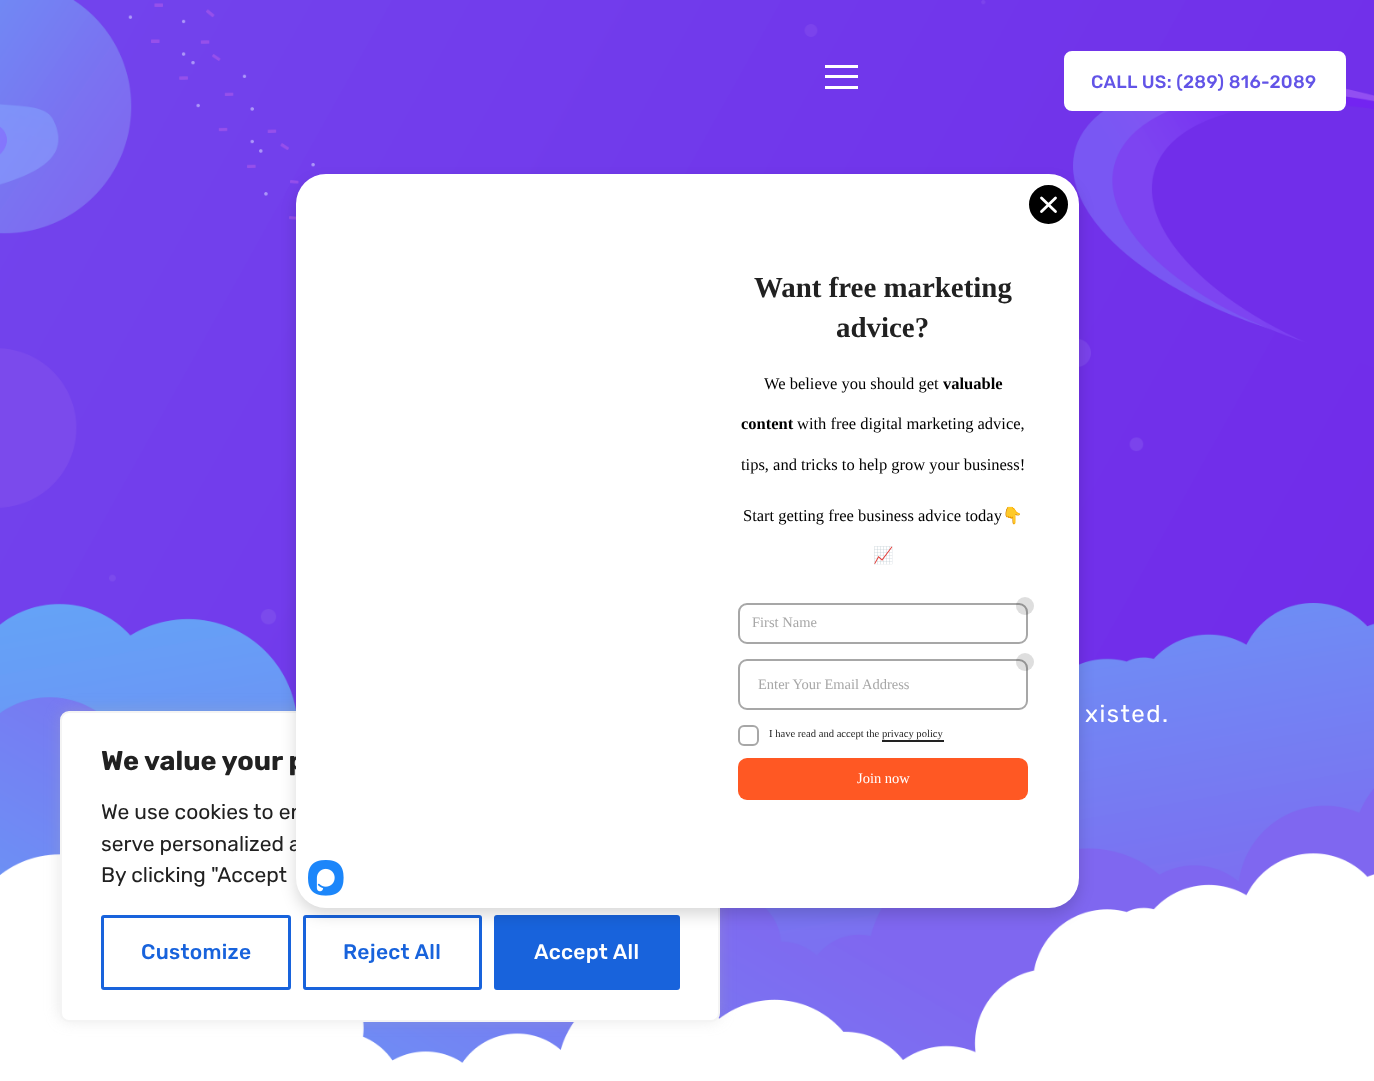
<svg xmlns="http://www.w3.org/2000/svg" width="1374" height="1081">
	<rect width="100%" height="100%" fill="#FFFFFF" />
	<image x="0" y="0" width="1374" height="1063" href="assets/img2.png" />
	<rect x="825" y="75" width="33" height="3" fill="#FFFFFF" />
	<rect x="825" y="65" width="33" height="3" fill="#FFFFFF" />
	<rect x="825" y="86" width="33" height="3" fill="#FFFFFF" />
	<rect x="1065" y="52" width="280" height="58" rx="7" fill="#FFFFFF" stroke="#FFFFFF" stroke-width="2" />
	<text x="1091" y="88" font-family="Rubik" font-size="18" font-weight="500" letter-spacing="0.3" fill="#6254E7">CALL US: (289) 816-2089</text>
	<rect x="60" y="710" width="660" height="310" rx="9" fill="#ACABAB" fill-opacity="0.3" filter="blur(7.5px)" />
	<rect x="61" y="712" width="658" height="309" rx="8" fill="#FFFFFF" stroke="#F4F4F4" stroke-width="2" />
	<rect x="102.5" y="916.5" width="187" height="72" rx="1.5" fill="none" stroke="#1863DC" stroke-width="3" />
	<rect x="304.5" y="916.5" width="176" height="72" rx="1.5" fill="none" stroke="#1863DC" stroke-width="3" />
	<rect x="495.5" y="916.5" width="183" height="72" rx="1.5" fill="#1863DC" stroke="#1863DC" stroke-width="3" />
	<rect x="296" y="182" width="783" height="733" rx="30" fill="#000000" fill-opacity="0.15" filter="blur(7.5px)" />
	<text x="101" y="770" font-family="Rubik" font-size="27" font-weight="700" fill="#212121">We value your p</text>
	<g font-family="Rubik" font-size="21" fill="#212121">
		<text x="101" y="819">We use cookies to en</text>
		<text x="101" y="851">serve personalized a</text>
	</g>
	<rect x="296" y="174" width="783" height="734" rx="30" fill="#FFFFFF" />
	<circle cx="1048.5" cy="204.5" r="18.5" fill="#000000" stroke="#000000" stroke-width="2" />
	<path d="M1055.5 198L1041.5 211.5M1041.5 198L1055.5 211.5" fill="none" stroke="#FFFFFF" stroke-width="2.8" stroke-linecap="round" />
	<g font-family="Liberation Serif" font-size="28.9" font-weight="700" fill="#212121">
		<text x="754" y="297">Want free marketing</text>
		<text x="836" y="337">advice?</text>
	</g>
	<text x="764" y="389" font-family="Liberation Serif" font-size="16.5" fill="#000000">We believe you should get</text>
	<g font-family="Liberation Serif" font-size="16.5" font-weight="700" fill="#000000">
		<text x="943" y="389">valuable</text>
		<text x="741" y="429">content</text>
	</g>
	<g font-family="Liberation Serif" font-size="16.5" fill="#000000">
		<text x="797" y="429">with free digital marketing advice,</text>
		<text x="741" y="470">tips, and tricks to help grow your business!</text>
		<text x="743" y="521">Start getting free business advice today</text>
	</g>
	<g font-family="Noto Color Emoji" font-size="16.5" fill="#000000">
		<text x="1002" y="521">👇</text>
		<text x="873" y="561">📈</text>
	</g>
	<rect x="739" y="604" width="288" height="39" rx="8" fill="none" stroke="#A7A7A7" stroke-width="2" />
	<circle cx="1025" cy="606" r="9" fill="#222222" fill-opacity="0.15" />
	<text x="752" y="627" font-family="Liberation Serif" font-size="14.5" fill="#A7A7A7">First Name</text>
	<rect x="739" y="660" width="288" height="49" rx="8" fill="none" stroke="#A7A7A7" stroke-width="2" />
	<circle cx="1025" cy="662" r="9" fill="#222222" fill-opacity="0.15" />
	<text x="758" y="689" font-family="Liberation Serif" font-size="14.5" fill="#A7A7A7">Enter Your Email Address</text>
	<rect x="739" y="726" width="19" height="19" rx="5" fill="none" stroke="#A7A7A7" stroke-width="2" />
	<text x="769" y="737" font-family="Liberation Serif" font-size="10.6" fill="#212121">I have read and accept the privacy policy</text>
	<rect x="882" y="740" width="62" height="2" fill="#222222" />
	<rect x="738" y="758" width="290" height="42" rx="9" fill="#FF5823" />
	<text x="857" y="783" font-family="Liberation Serif" font-size="14.5" fill="#FFFFFF">Join now</text>
	<image x="308" y="860" width="36" height="36" href="assets/img1.png" />
	<text x="1085" y="722" font-family="Rubik" font-size="24" letter-spacing="1.5" fill="#FFFFFF">xisted.</text>
	<text x="101" y="882" font-family="Rubik" font-size="21" fill="#212121">By clicking "Accept</text>
	<g font-family="Rubik" font-size="21" font-weight="500" letter-spacing="0.3" fill="#1863DC">
		<text x="141" y="959">Customize</text>
		<text x="343" y="959">Reject All</text>
	</g>
	<text x="534" y="959" font-family="Rubik" font-size="21" font-weight="500" letter-spacing="0.3" fill="#FFFFFF">Accept All</text>
</svg>
